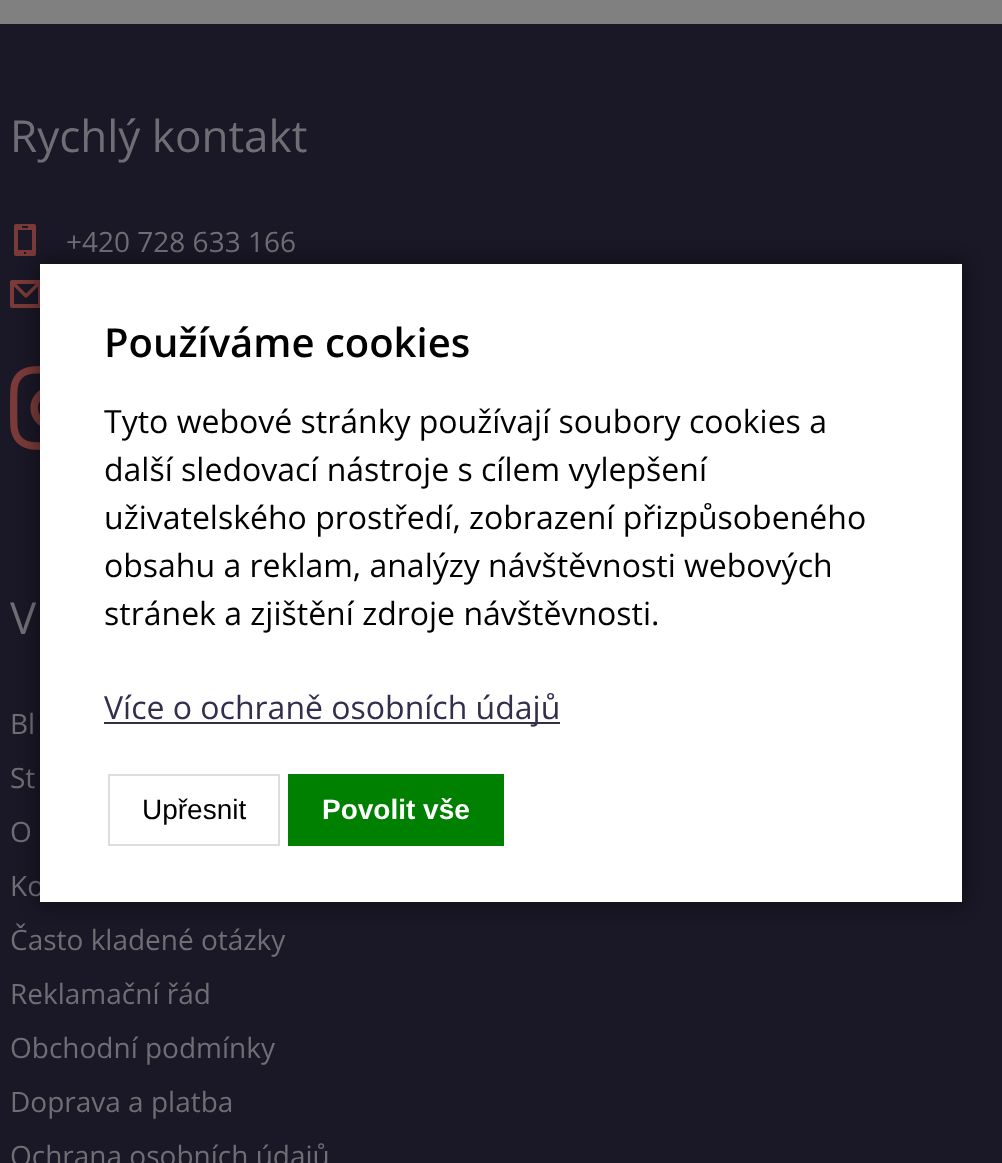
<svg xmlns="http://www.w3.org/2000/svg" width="1002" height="1163">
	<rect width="100%" height="100%" fill="#808080" />
	<rect x="0" y="24" width="1002" height="1139" fill="#1A1726" />
	<text x="10" y="152" font-family="Open Sans" font-size="44" fill="#6F6E75">Rychlý kontakt</text>
	<image x="14" y="224" width="22" height="32" href="assets/img1.png" />
	<text x="66" y="252" font-family="Open Sans" font-size="28" fill="#6F6E75">+420 728 633 166</text>
	<image x="10" y="280" width="30" height="28" href="assets/img2.png" />
	<image x="10" y="366" width="30" height="84" href="assets/img3.png" />
	<text x="10" y="634" font-family="Open Sans" font-size="44" fill="#6F6E75">V</text>
	<g font-family="Open Sans" font-size="28" fill="#6F6E75">
		<text x="10" y="734">Bl</text>
		<text x="10" y="788">St</text>
		<text x="10" y="842">O</text>
		<text x="10" y="896">Ko</text>
		<text x="10" y="950">Často kladené otázky</text>
		<text x="10" y="1004">Reklamační řád</text>
		<text x="10" y="1058">Obchodní podmínky</text>
		<text x="10" y="1112">Doprava a platba</text>
		<text x="10" y="1166">Ochrana osobních údajů</text>
	</g>
	<rect x="40" y="264" width="922" height="638" fill="#000000" fill-opacity="0.5" filter="blur(10px)" />
	<rect x="40" y="264" width="922" height="638" fill="#FFFFFF" />
	<text x="104" y="357" font-family="Open Sans" font-size="40" font-weight="600" fill="#000000">Používáme cookies</text>
	<g font-family="Open Sans" font-size="32" fill="#000000">
		<text x="104" y="433">Tyto webové stránky používají soubory cookies a</text>
		<text x="104" y="481">další sledovací nástroje s cílem vylepšení</text>
		<text x="104" y="529">uživatelského prostředí, zobrazení přizpůsobeného</text>
		<text x="104" y="577">obsahu a reklam, analýzy návštěvnosti webových</text>
		<text x="104" y="625">stránek a zjištění zdroje návštěvnosti.</text>
	</g>
	<rect x="104" y="722" width="456" height="2" fill="#332E4C" />
	<text x="104" y="719" font-family="Open Sans" font-size="32" fill="#332E4C">Více o ochraně osobních údajů</text>
	<rect x="109" y="775" width="170" height="70" fill="none" stroke="#DDDDDD" stroke-width="2" />
	<text x="142" y="819" font-family="Liberation Sans" font-size="28" fill="#000000">Upřesnit</text>
	<rect x="288" y="774" width="216" height="72" fill="#008000" />
	<text x="322" y="819" font-family="Liberation Sans" font-size="28" font-weight="700" fill="#FFFFFF">Povolit vše</text>
</svg>
